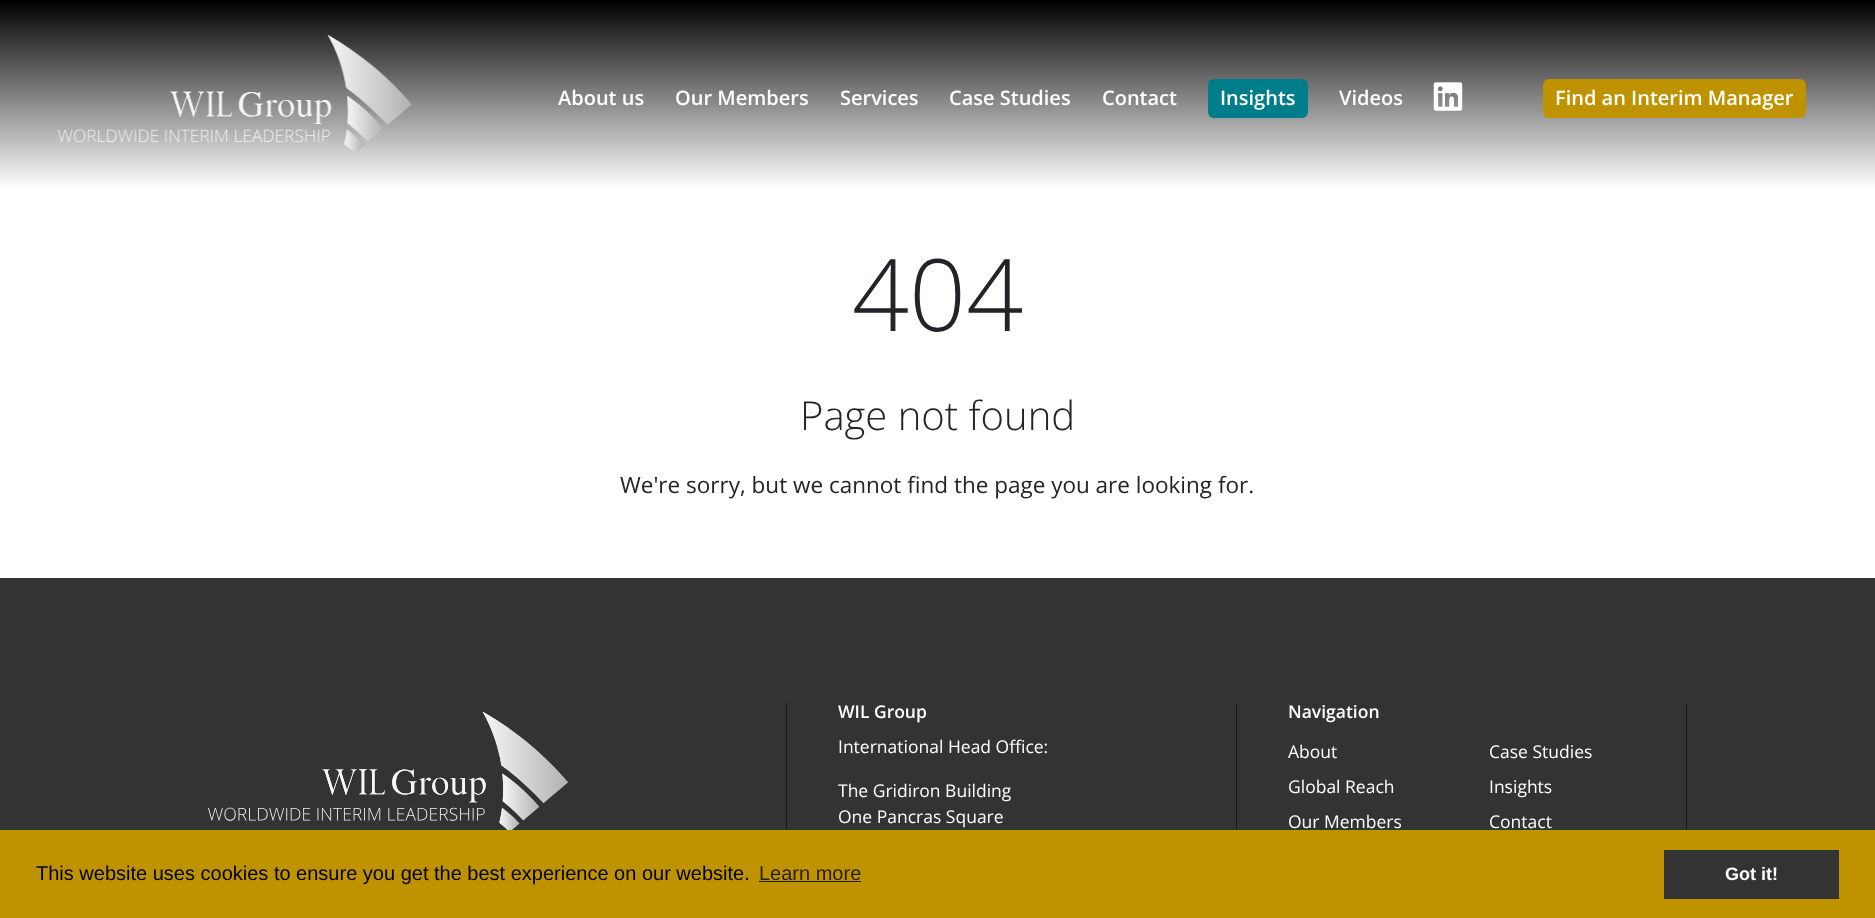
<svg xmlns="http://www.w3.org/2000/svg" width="1875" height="918">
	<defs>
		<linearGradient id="g1" gradientUnits="userSpaceOnUse" x1="938" y1="0" x2="938" y2="189"><stop offset="0" stop-color="#000000" /><stop offset="1" stop-color="#FFFFFF" /></linearGradient>
	</defs>
	<rect width="100%" height="100%" fill="#FFFFFF" />
	<rect x="0" y="0" width="1875" height="187" fill="url(#g1)" />
	<image x="57" y="34" width="355" height="118" href="assets/img1.png" />
	<g font-family="Open Sans" font-size="20" font-weight="600" fill="#FFFFFF">
		<text x="558" y="105">About us</text>
		<text x="675" y="105">Our Members</text>
		<text x="840" y="105">Services</text>
		<text x="949" y="105">Case Studies</text>
		<text x="1102" y="105">Contact</text>
	</g>
	<rect x="1208" y="79" width="100" height="39" rx="6" fill="#007D8A" />
	<g font-family="Open Sans" font-size="20" font-weight="600" fill="#FFFFFF">
		<text x="1220" y="105">Insights</text>
		<text x="1339" y="105">Videos</text>
	</g>
	<image x="1433" y="82" width="30" height="29" href="assets/img2.png" />
	<rect x="1543" y="79" width="263" height="39" rx="6" fill="#BF9300" />
	<text x="1555" y="105" font-family="Open Sans" font-size="20" font-weight="600" fill="#FFFFFF">Find an Interim Manager</text>
	<text x="852" y="331" font-family="Open Sans" font-size="100" font-weight="300" fill="#212529">404</text>
	<text x="800" y="430" font-family="Open Sans" font-size="40" font-weight="300" fill="#212529">Page not found</text>
	<text x="620" y="493" font-family="Open Sans" font-size="22.5" fill="#212529">We're sorry, but we cannot find the page you are looking for.</text>
	<rect x="0" y="578" width="1875" height="252" fill="#333333" />
	<rect x="786" y="703" width="1" height="127" fill="#191919" />
	<image x="208" y="711" width="360" height="119" href="assets/img3.png" />
	<rect x="1236" y="703" width="1" height="127" fill="#191919" />
	<text x="838" y="718" font-family="Open Sans" font-size="17.5" font-weight="600" fill="#FFFFFF">WIL Group</text>
	<g font-family="Open Sans" font-size="17.5" fill="#FFFFFF">
		<text x="838" y="753">International Head Office:</text>
		<text x="838" y="797">The Gridiron Building</text>
		<text x="838" y="823">One Pancras Square</text>
	</g>
	<rect x="1686" y="703" width="1" height="127" fill="#191919" />
	<text x="1288" y="718" font-family="Open Sans" font-size="17.5" font-weight="600" fill="#FFFFFF">Navigation</text>
	<g font-family="Open Sans" font-size="17.5" fill="#FFFFFF">
		<text x="1288" y="758">About</text>
		<text x="1489" y="758">Case Studies</text>
		<text x="1288" y="793">Global Reach</text>
		<text x="1489" y="793">Insights</text>
		<text x="1288" y="828">Our Members</text>
		<text x="1489" y="828">Contact</text>
	</g>
	<rect x="0" y="830" width="1875" height="88" fill="#BF9300" />
	<text x="36" y="880" font-family="Liberation Sans" font-size="20" fill="#000000">This website uses cookies to ensure you get the best experience on our website.</text>
	<text x="759" y="880" font-family="Liberation Sans" font-size="20" fill="#261D00">Learn more</text>
	<rect x="759" y="881" width="102" height="1" fill="#261D00" />
	<rect x="1664" y="850" width="175" height="49" fill="#333333" />
	<text x="1725" y="880" font-family="Liberation Sans" font-size="18" font-weight="700" fill="#FFFFFF">Got it!</text>
</svg>
